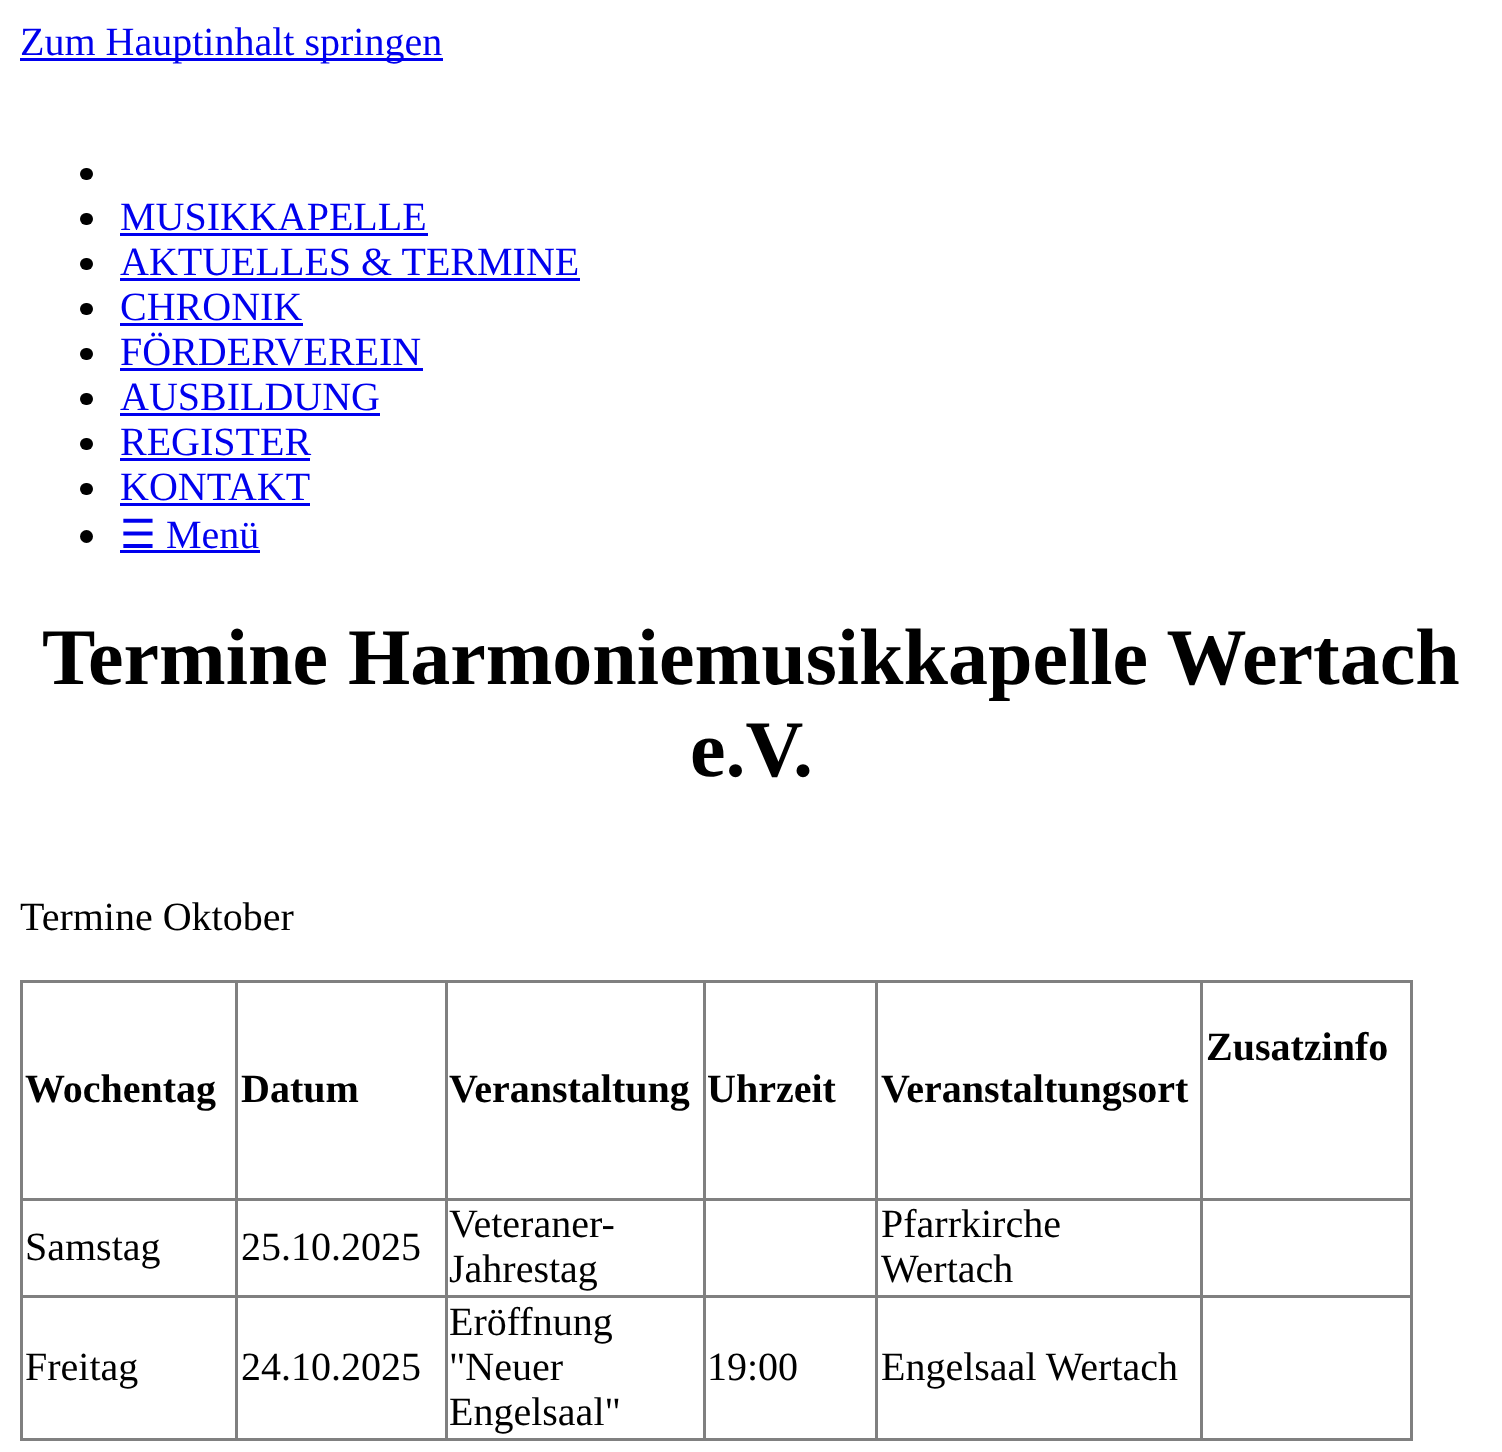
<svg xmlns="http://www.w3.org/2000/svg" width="1502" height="1452">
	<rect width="100%" height="100%" fill="#FFFFFF" />
	<rect x="20" y="58" width="423" height="3" fill="#0000EE" />
	<text x="20" y="55" font-family="Liberation Serif" font-size="40" fill="#0000EE">Zum Hauptinhalt springen</text>
	<rect x="80" y="168" width="13" height="12" rx="6" fill="#000000" />
	<rect x="80" y="213" width="13" height="12" rx="6" fill="#000000" />
	<text x="120" y="230" font-family="Liberation Serif" font-size="40" fill="#0000EE">MUSIKKAPELLE</text>
	<rect x="120" y="233" width="308" height="3" fill="#0000EE" />
	<rect x="80" y="258" width="13" height="12" rx="6" fill="#000000" />
	<text x="120" y="275" font-family="Liberation Serif" font-size="40" fill="#0000EE">AKTUELLES &amp; TERMINE</text>
	<rect x="120" y="278" width="460" height="3" fill="#0000EE" />
	<rect x="80" y="303" width="13" height="12" rx="6" fill="#000000" />
	<text x="120" y="320" font-family="Liberation Serif" font-size="40" fill="#0000EE">CHRONIK</text>
	<rect x="120" y="323" width="183" height="3" fill="#0000EE" />
	<rect x="80" y="348" width="13" height="12" rx="6" fill="#000000" />
	<text x="120" y="365" font-family="Liberation Serif" font-size="40" fill="#0000EE">FÖRDERVEREIN</text>
	<rect x="120" y="368" width="303" height="3" fill="#0000EE" />
	<rect x="80" y="393" width="13" height="12" rx="6" fill="#000000" />
	<text x="120" y="410" font-family="Liberation Serif" font-size="40" fill="#0000EE">AUSBILDUNG</text>
	<rect x="120" y="413" width="260" height="3" fill="#0000EE" />
	<rect x="80" y="438" width="13" height="12" rx="6" fill="#000000" />
	<text x="120" y="455" font-family="Liberation Serif" font-size="40" fill="#0000EE">REGISTER</text>
	<rect x="120" y="458" width="190" height="3" fill="#0000EE" />
	<rect x="80" y="483" width="13" height="12" rx="6" fill="#000000" />
	<text x="120" y="500" font-family="Liberation Serif" font-size="40" fill="#0000EE">KONTAKT</text>
	<rect x="120" y="503" width="190" height="3" fill="#0000EE" />
	<circle cx="86.5" cy="536.5" r="6.5" fill="#000000" />
	<text x="120" y="548" font-family="DejaVu Sans" font-size="40" fill="#0000EE">☰</text>
	<text x="166" y="548" font-family="Liberation Serif" font-size="40" fill="#0000EE">Menü</text>
	<rect x="120" y="550" width="140" height="3" fill="#0000EE" />
	<g font-family="Liberation Serif" font-size="80" font-weight="700" fill="#000000">
		<text x="42" y="684">Termine Harmoniemusikkapelle Wertach</text>
		<text x="690" y="776">e.V.</text>
	</g>
	<text x="20" y="930" font-family="Liberation Serif" font-size="40" fill="#000000">Termine Oktober</text>
	<rect x="20" y="980" width="1393" height="3" fill="#808080" />
	<rect x="1410" y="980" width="3" height="460" fill="#808080" />
	<rect x="20" y="1438" width="1393" height="3" fill="#808080" />
	<rect x="20" y="980" width="3" height="460" fill="#808080" />
	<rect x="1200" y="1198" width="213" height="3" fill="#808080" />
	<rect x="1200" y="1295" width="213" height="3" fill="#808080" />
	<rect x="1200" y="1295" width="3" height="145" fill="#808080" />
	<rect x="875" y="1295" width="328" height="3" fill="#808080" />
	<rect x="1200" y="1198" width="3" height="100" fill="#808080" />
	<rect x="875" y="1198" width="328" height="3" fill="#808080" />
	<rect x="1200" y="980" width="3" height="220" fill="#808080" />
	<g font-family="Liberation Serif" font-size="40" font-weight="700" fill="#000000">
		<text x="1206" y="1060">Zusatzinfo</text>
		<text x="25" y="1102">Wochentag</text>
	</g>
	<rect x="875" y="1295" width="3" height="145" fill="#808080" />
	<rect x="703" y="1295" width="175" height="3" fill="#808080" />
	<rect x="875" y="1198" width="3" height="100" fill="#808080" />
	<rect x="703" y="1198" width="175" height="3" fill="#808080" />
	<rect x="703" y="1295" width="3" height="145" fill="#808080" />
	<rect x="445" y="1295" width="260" height="3" fill="#808080" />
	<rect x="703" y="1198" width="3" height="100" fill="#808080" />
	<rect x="445" y="1198" width="260" height="3" fill="#808080" />
	<rect x="445" y="1295" width="3" height="145" fill="#808080" />
	<rect x="235" y="1295" width="213" height="3" fill="#808080" />
	<rect x="445" y="1198" width="3" height="100" fill="#808080" />
	<rect x="235" y="1198" width="213" height="3" fill="#808080" />
	<rect x="235" y="1295" width="3" height="145" fill="#808080" />
	<rect x="20" y="1295" width="218" height="3" fill="#808080" />
	<rect x="235" y="1198" width="3" height="100" fill="#808080" />
	<rect x="20" y="1198" width="218" height="3" fill="#808080" />
	<rect x="235" y="980" width="3" height="220" fill="#808080" />
	<text x="241" y="1102" font-family="Liberation Serif" font-size="40" font-weight="700" fill="#000000">Datum</text>
	<rect x="445" y="980" width="3" height="220" fill="#808080" />
	<text x="449" y="1102" font-family="Liberation Serif" font-size="40" font-weight="700" fill="#000000">Veranstaltung</text>
	<rect x="703" y="980" width="3" height="220" fill="#808080" />
	<text x="707" y="1102" font-family="Liberation Serif" font-size="40" font-weight="700" fill="#000000">Uhrzeit</text>
	<rect x="875" y="980" width="3" height="220" fill="#808080" />
	<text x="881" y="1102" font-family="Liberation Serif" font-size="40" font-weight="700" fill="#000000">Veranstaltungsort</text>
	<g font-family="Liberation Serif" font-size="40" fill="#000000">
		<text x="25" y="1260">Samstag</text>
		<text x="241" y="1260">25.10.2025</text>
		<text x="449" y="1237">Veteraner-</text>
		<text x="449" y="1282">Jahrestag</text>
		<text x="881" y="1237">Pfarrkirche</text>
		<text x="881" y="1282">Wertach</text>
		<text x="25" y="1380">Freitag</text>
		<text x="241" y="1380">24.10.2025</text>
		<text x="449" y="1335">Eröffnung</text>
		<text x="449" y="1380">"Neuer</text>
		<text x="449" y="1425">Engelsaal"</text>
		<text x="707" y="1380">19:00</text>
		<text x="881" y="1380">Engelsaal Wertach</text>
	</g>
</svg>
